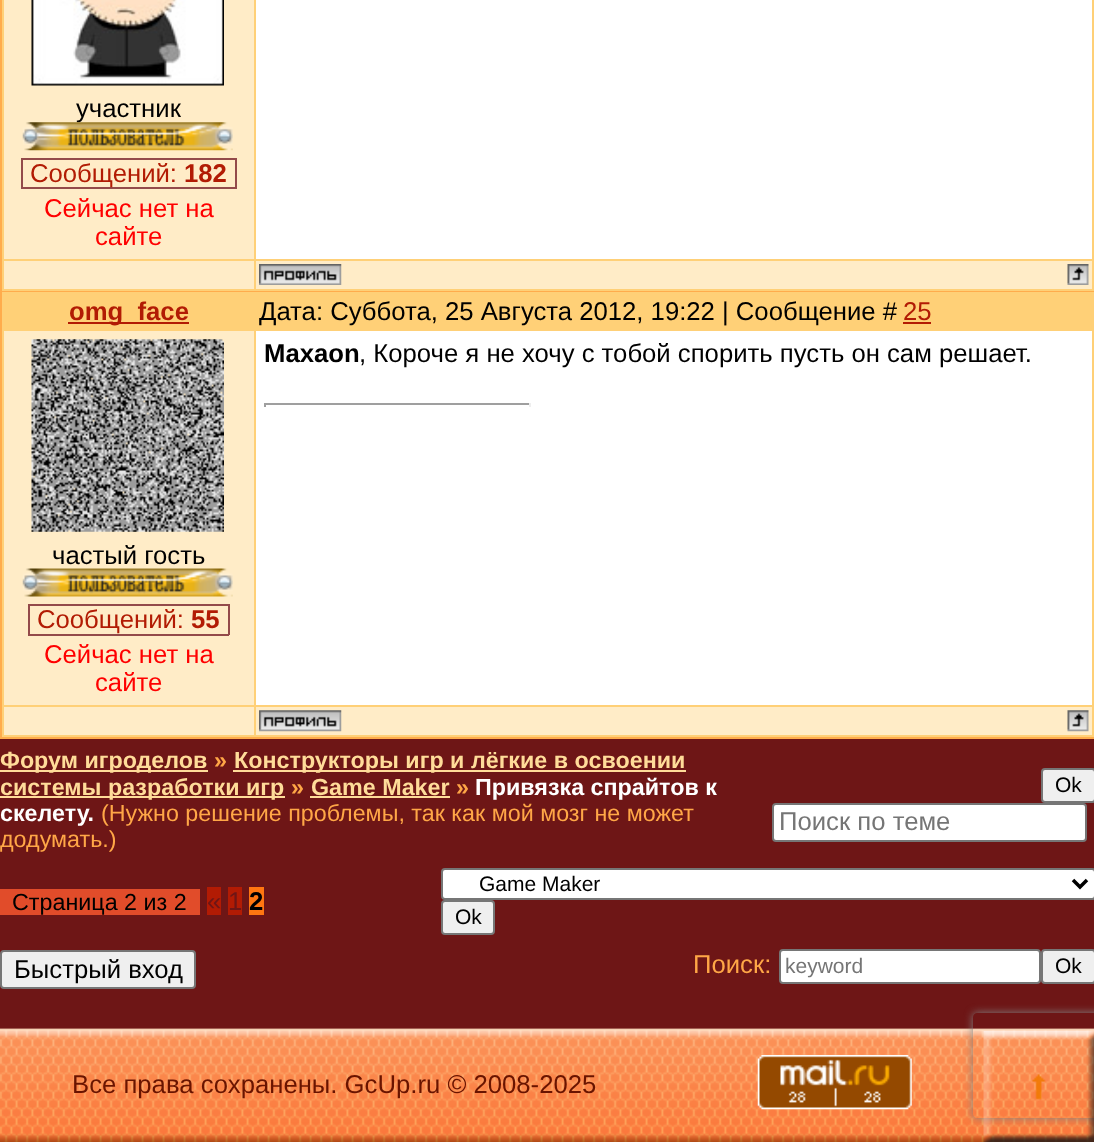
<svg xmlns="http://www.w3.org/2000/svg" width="1094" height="1142">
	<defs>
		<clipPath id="clip1"><path d="M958 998H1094V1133H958ZM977 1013H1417C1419 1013 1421 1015 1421 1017V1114C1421 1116 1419 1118 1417 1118H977C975 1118 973 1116 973 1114V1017C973 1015 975 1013 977 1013Z" clip-rule="evenodd" /></clipPath>
	</defs>
	<rect width="100%" height="100%" fill="#6E1616" />
	<rect x="0" y="0" width="1094" height="739" fill="#FFAC4C" />
	<rect x="2" y="0" width="1092" height="291" fill="#FFD077" />
	<rect x="4" y="0" width="250" height="259" fill="#FFECC7" />
	<image x="31" y="0" width="193" height="86" href="assets/img1.png" />
	<text x="76" y="117" font-family="Liberation Sans" font-size="25.7" fill="#000000">участник</text>
	<image x="22" y="122" width="211" height="29" href="assets/img2.png" />
	<rect x="21" y="187" width="163" height="2" fill="#934A4A" />
	<text x="30" y="182" font-family="Liberation Sans" font-size="25.7" fill="#B21B04">Сообщений:</text>
	<rect x="21" y="158" width="215" height="2" fill="#934A4A" />
	<rect x="21" y="158" width="2" height="31" fill="#934A4A" />
	<text x="184" y="182" font-family="Liberation Sans" font-size="25.7" font-weight="700" fill="#B21B04">182</text>
	<rect x="235" y="158" width="2" height="31" fill="#934A4A" />
	<rect x="184" y="187" width="52" height="2" fill="#934A4A" />
	<g font-family="Liberation Sans" font-size="25.7" fill="#FF0000">
		<text x="44" y="217">Сейчас нет на</text>
		<text x="95" y="245">сайте</text>
	</g>
	<rect x="256" y="0" width="836" height="259" fill="#FFFFFF" />
	<rect x="4" y="261" width="250" height="28" fill="#FFECC7" />
	<rect x="256" y="261" width="836" height="28" fill="#FFECC7" />
	<image x="259" y="264" width="83" height="21" href="assets/img3.png" />
	<image x="1067" y="264" width="22" height="21" href="assets/img4.png" />
	<rect x="2" y="292" width="1092" height="445" fill="#FFD077" />
	<rect x="68" y="322" width="121" height="2" fill="#B21B04" />
	<text x="69" y="320" font-family="Liberation Sans" font-size="25.7" font-weight="700" fill="#B21B04">omg_face</text>
	<text x="259" y="320" font-family="Liberation Sans" font-size="25.7" fill="#000000">Дата: Суббота, 25 Августа 2012, 19:22 | Сообщение #</text>
	<text x="903" y="320" font-family="Liberation Sans" font-size="25.7" fill="#B21B04">25</text>
	<rect x="903" y="322" width="28" height="2" fill="#B21B04" />
	<rect x="256" y="331" width="836" height="374" fill="#FFFFFF" />
	<text x="264" y="362" font-family="Liberation Sans" font-size="25.7" font-weight="700" fill="#000000">Maxaon</text>
	<text x="359" y="362" font-family="Liberation Sans" font-size="25.7" fill="#000000">, Короче я не хочу с тобой спорить пусть он сам решает.</text>
	<rect x="264" y="403" width="266" height="2" fill="#9F9F9F" />
	<rect x="529" y="403" width="2" height="4" fill="#EEEEEE" />
	<rect x="264" y="403" width="2" height="4" fill="#9F9F9F" />
	<rect x="4" y="331" width="250" height="374" fill="#FFECC7" />
	<image x="31" y="339" width="193" height="193" href="assets/img5.png" />
	<text x="52" y="564" font-family="Liberation Sans" font-size="25.7" fill="#000000">частый гость</text>
	<image x="22" y="568" width="211" height="29" href="assets/img6.png" />
	<text x="37" y="628" font-family="Liberation Sans" font-size="25.7" fill="#B21B04">Сообщений:</text>
	<rect x="28" y="634" width="163" height="2" fill="#934A4A" />
	<rect x="28" y="604" width="201" height="2" fill="#934A4A" />
	<rect x="28" y="604" width="2" height="31" fill="#934A4A" />
	<text x="191" y="628" font-family="Liberation Sans" font-size="25.7" font-weight="700" fill="#B21B04">55</text>
	<rect x="228" y="604" width="2" height="31" fill="#934A4A" />
	<rect x="191" y="634" width="38" height="2" fill="#934A4A" />
	<g font-family="Liberation Sans" font-size="25.7" fill="#FF0000">
		<text x="44" y="663">Сейчас нет на</text>
		<text x="95" y="691">сайте</text>
	</g>
	<rect x="4" y="707" width="250" height="28" fill="#FFECC7" />
	<rect x="256" y="707" width="836" height="28" fill="#FFECC7" />
	<image x="259" y="710" width="83" height="22" href="assets/img7.png" />
	<image x="1067" y="710" width="22" height="22" href="assets/img8.png" />
	<rect x="0" y="770" width="208" height="2" fill="#FFDC99" />
	<text x="0" y="768" font-family="Liberation Sans" font-size="23.3" font-weight="700" fill="#FFDC99">Форум игроделов</text>
	<text x="214" y="768" font-family="Liberation Sans" font-size="23.3" font-weight="700" fill="#FFA747">»</text>
	<rect x="233" y="770" width="453" height="2" fill="#FFDC99" />
	<text x="234" y="768" font-family="Liberation Sans" font-size="23.3" font-weight="700" fill="#FFDC99">Конструкторы игр и лёгкие в освоении</text>
	<rect x="0" y="796" width="285" height="2" fill="#FFDC99" />
	<text x="0" y="795" font-family="Liberation Sans" font-size="23.3" font-weight="700" fill="#FFDC99">системы разработки игр</text>
	<text x="291" y="795" font-family="Liberation Sans" font-size="23.3" font-weight="700" fill="#FFA747">»</text>
	<text x="311" y="795" font-family="Liberation Sans" font-size="23.3" font-weight="700" fill="#FFDC99">Game Maker</text>
	<rect x="310" y="796" width="140" height="2" fill="#FFDC99" />
	<text x="456" y="795" font-family="Liberation Sans" font-size="23.3" font-weight="700" fill="#FFA747">»</text>
	<g font-family="Liberation Sans" font-size="23.3" font-weight="700" fill="#FFFFFF">
		<text x="475" y="795">Привязка спрайтов к</text>
		<text x="0" y="821">скелету.</text>
	</g>
	<g font-family="Liberation Sans" font-size="23.3" fill="#FFA747">
		<text x="101" y="821">(Нужно решение проблемы, так как мой мозг не может</text>
		<text x="0" y="847">додумать.)</text>
	</g>
	<rect x="1042" y="769" width="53" height="33" rx="3" fill="#EFEFEF" stroke="#767676" stroke-width="2" />
	<text x="1055" y="792" font-family="Liberation Sans" font-size="21" fill="#000000">Ok</text>
	<rect x="773" y="804" width="313" height="37" rx="3" fill="#FFFFFF" stroke="#767676" stroke-width="2" />
	<text x="779" y="830" font-family="Liberation Sans" font-size="25.7" fill="#757575">Поиск по теме</text>
	<rect x="0" y="889" width="200" height="26" fill="#E14C2A" />
	<text x="12" y="910" font-family="Liberation Sans" font-size="23.3" fill="#000000">Страница 2 из 2</text>
	<rect x="207" y="887" width="14" height="28" fill="#B21B04" />
	<text x="207" y="910" font-family="Liberation Sans" font-size="25.7" fill="#6E1616">«</text>
	<rect x="228" y="887" width="14" height="28" fill="#B21B04" />
	<text x="228" y="910" font-family="Liberation Sans" font-size="25.7" fill="#6E1616">1</text>
	<rect x="249" y="887" width="15" height="28" fill="#FF7611" />
	<text x="249" y="910" font-family="Liberation Sans" font-size="25.7" font-weight="700" fill="#000000">2</text>
	<rect x="442" y="869" width="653" height="30" rx="3" fill="#FFFFFF" stroke="#767676" stroke-width="2" />
	<path d="M1073 880L1080 887L1087 880" fill="none" stroke="#000000" stroke-width="3.5" />
	<text x="479" y="891" font-family="Liberation Sans" font-size="21" fill="#000000">Game Maker</text>
	<rect x="442" y="901" width="52" height="33" rx="3" fill="#EFEFEF" stroke="#767676" stroke-width="2" />
	<text x="455" y="924" font-family="Liberation Sans" font-size="21" fill="#000000">Ok</text>
	<rect x="1" y="951" width="194" height="37" rx="3" fill="#EFEFEF" stroke="#767676" stroke-width="2" />
	<text x="14" y="978" font-family="Liberation Sans" font-size="25.7" fill="#000000">Быстрый вход</text>
	<text x="693" y="973" font-family="Liberation Sans" font-size="25.7" fill="#FFA747">Поиск:</text>
	<rect x="780" y="950" width="260" height="33" rx="3" fill="#FFFFFF" stroke="#767676" stroke-width="2" />
	<text x="785" y="973" font-family="Liberation Sans" font-size="21" fill="#757575">keyword</text>
	<rect x="1042" y="950" width="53" height="33" rx="3" fill="#EFEFEF" stroke="#767676" stroke-width="2" />
	<text x="1055" y="973" font-family="Liberation Sans" font-size="21" fill="#000000">Ok</text>
	<image x="0" y="1026" width="1094" height="116" href="assets/img9.png" />
	<text x="72" y="1093" font-family="Liberation Sans" font-size="25.7" fill="#691400">Все права сохранены. GcUp.ru © 2008-2025</text>
	<image x="757" y="1055" width="155" height="55" href="assets/img10.png" />
	<g clip-path="url(#clip1)">
		<rect x="973" y="1013" width="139" height="105" rx="4" fill="#808080" filter="blur(4.5px)" />
	</g>
	<image x="983" y="1030" width="111" height="112" href="assets/img11.png" />
</svg>
